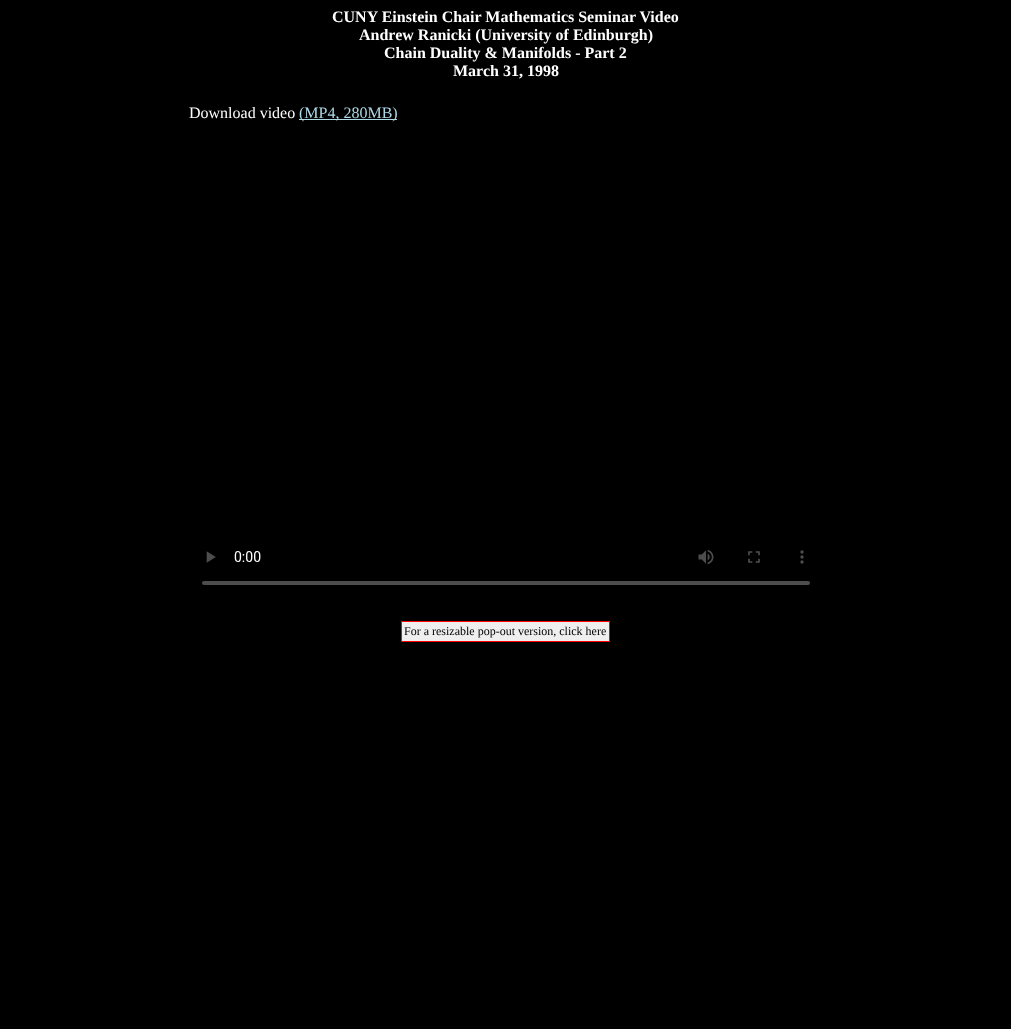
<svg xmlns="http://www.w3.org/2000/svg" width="1011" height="1029">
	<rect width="100%" height="100%" fill="#000000" />
	<g font-family="Liberation Serif" font-size="16" font-weight="700" fill="#FFFFFF">
		<text x="332" y="22">CUNY Einstein Chair Mathematics Seminar Video</text>
		<text x="359" y="40">Andrew Ranicki (University of Edinburgh)</text>
		<text x="384" y="58">Chain Duality &amp; Manifolds - Part 2</text>
		<text x="453" y="76">March 31, 1998</text>
	</g>
	<text x="189" y="118" font-family="Liberation Serif" font-size="16" fill="#FFFFFF">Download video</text>
	<rect x="299" y="119" width="98" height="1" fill="#ADD8E6" />
	<text x="299" y="118" font-family="Liberation Serif" font-size="16" fill="#ADD8E6">(MP4, 280MB)</text>
	<image x="202" y="549" width="608" height="36" href="assets/img1.png" />
	<rect x="401.5" y="621.5" width="208" height="20" fill="#EFEFEF" stroke="#FF0000" />
	<text x="404" y="635" font-family="Liberation Serif" font-size="12" fill="#000000">For a resizable pop-out version, click here</text>
</svg>
